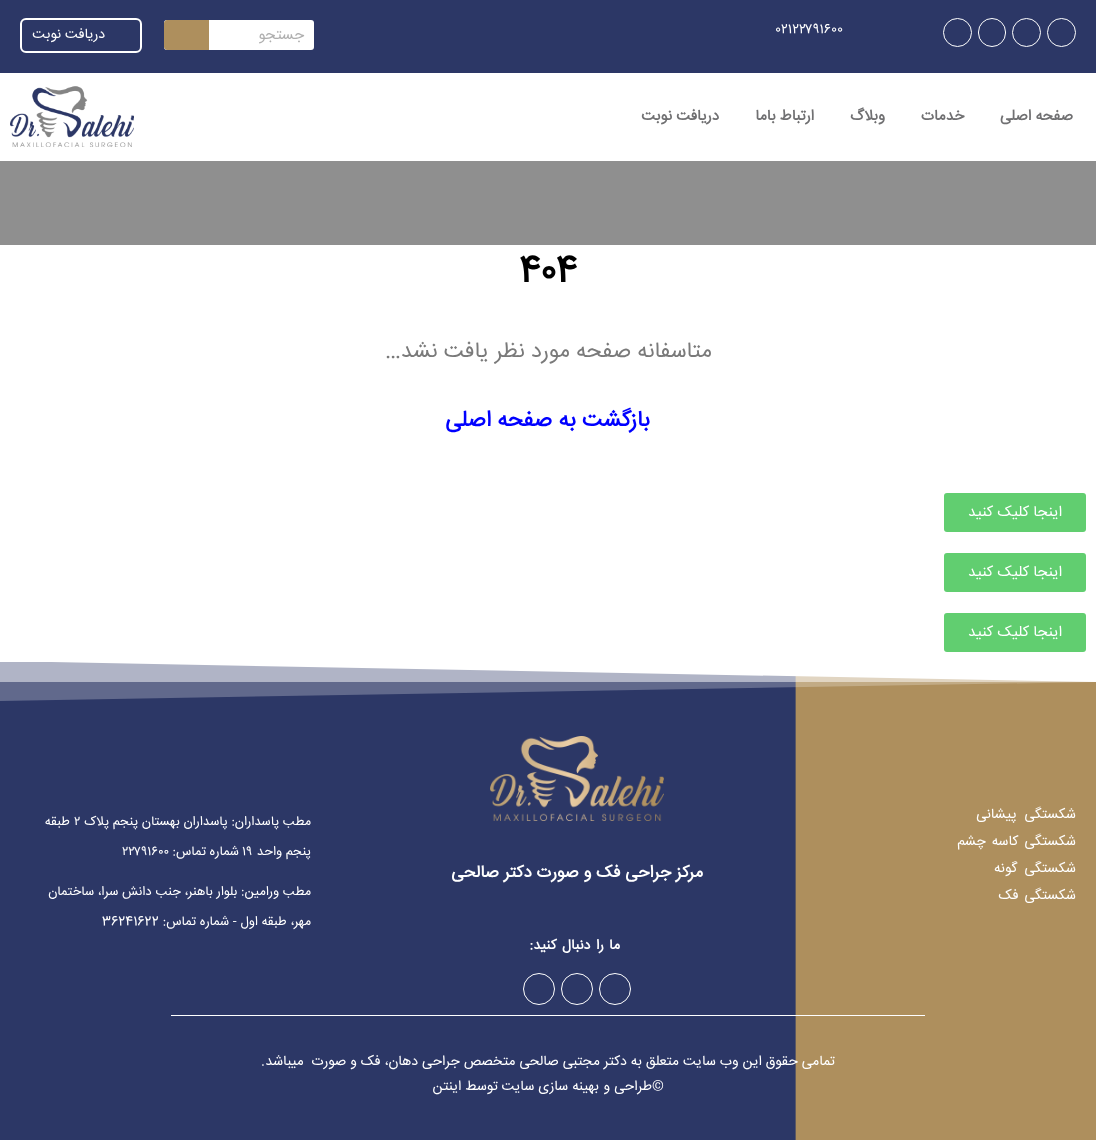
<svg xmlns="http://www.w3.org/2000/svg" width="1096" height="1140">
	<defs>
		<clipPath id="clip1"><rect x="792" y="861" width="284" height="17" /></clipPath>
	</defs>
	<rect width="100%" height="100%" fill="#FFFFFF" />
	<rect x="0" y="0" width="1096" height="73" fill="#2C3766" />
	<circle cx="1061.5" cy="32.5" r="14" fill="none" stroke="#FFFFFF" />
	<circle cx="1026.5" cy="32.5" r="14" fill="none" stroke="#FFFFFF" />
	<rect x="978.5" y="18.5" width="27" height="28" rx="13.5" fill="none" stroke="#FFFFFF" />
	<circle cx="957.5" cy="32.5" r="14" fill="none" stroke="#FFFFFF" />
	<text x="776" y="33" font-family="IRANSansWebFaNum" font-size="14" fill="#FFFFFF">۰۲۱۲۲۷۹۱۶۰۰</text>
	<rect x="164" y="20" width="150" height="30" rx="3" fill="#FFFFFF" />
	<text x="304" y="39" font-family="IRANSansWebFaNum" font-size="15" direction="rtl" fill="#AFAFAF">جستجو</text>
	<path d="M167 20H209V50H167C165.5 50 164 48.5 164 47V23C164 21.5 165.5 20 167 20Z" fill="#AE8F5D" />
	<rect x="21" y="19" width="120" height="33" rx="5" fill="none" stroke="#FFFFFF" stroke-width="2" />
	<text x="105" y="38" font-family="IRANSansWebFaNum" font-size="14" direction="rtl" fill="#FFFFFF">دریافت نوبت</text>
	<g font-family="IRANSansWebFaNum" font-size="15" font-weight="700" direction="rtl" fill="#707072">
		<text x="1073" y="120">صفحه اصلی</text>
		<text x="964" y="120">خدمات</text>
		<text x="885" y="120">وبلاگ</text>
		<text x="814" y="120">ارتباط باما</text>
		<text x="719" y="120">دریافت نوبت</text>
	</g>
	<image x="10" y="86" width="124" height="61" href="assets/img1.png" />
	<rect x="0" y="161" width="1096" height="84" fill="#8F8F8F" />
	<text x="519" y="281" font-family="IRANSansWebFaNum" font-size="36" font-weight="700" letter-spacing="-1" fill="#000000">404</text>
	<text x="712" y="357" font-family="IRANSansWebFaNum" font-size="22" direction="rtl" fill="#7A7A7A">متاسفانه صفحه مورد نظر یافت نشد…</text>
	<text x="650" y="426" font-family="IRANSansWebFaNum" font-size="22" font-weight="700" direction="rtl" fill="#0000FF">بازگشت به صفحه اصلی</text>
	<rect x="944" y="493" width="142" height="39" rx="3" fill="#61CE70" />
	<text x="1062" y="516" font-family="IRANSansWebFaNum" font-size="15" direction="rtl" fill="#FFFFFF">اینجا کلیک کنید</text>
	<rect x="944" y="553" width="142" height="39" rx="3" fill="#61CE70" />
	<text x="1062" y="576" font-family="IRANSansWebFaNum" font-size="15" direction="rtl" fill="#FFFFFF">اینجا کلیک کنید</text>
	<rect x="944" y="613" width="142" height="39" rx="3" fill="#61CE70" />
	<text x="1062" y="636" font-family="IRANSansWebFaNum" font-size="15" direction="rtl" fill="#FFFFFF">اینجا کلیک کنید</text>
	<image x="0" y="662" width="1096" height="478" href="assets/img2.png" />
	<path d="M-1 661H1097V682Z" fill="#FFFFFF" />
	<rect x="0" y="662" width="1095" height="20" fill="#FFFFFF" fill-opacity="0.5" />
	<path d="M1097 661H-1V701L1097 682Z" fill="#FFFFFF" fill-opacity="0.25" />
	<g font-family="IRANSansWebFaNum" font-size="14" letter-spacing="-0.25" direction="rtl" fill="#FFFFFF">
		<text x="1076" y="818" word-spacing="4">شکستگی پیشانی</text>
		<text x="1076" y="845" word-spacing="2">شکستگی کاسه چشم</text>
	</g>
	<g clip-path="url(#clip1)">
		<text x="1076" y="872" word-spacing="3" font-family="IRANSansWebFaNum" font-size="14" letter-spacing="-0.25" direction="rtl" fill="#FFFFFF">شکستگی گونه</text>
	</g>
	<text x="1076" y="899" word-spacing="2" font-family="IRANSansWebFaNum" font-size="14" letter-spacing="-0.25" direction="rtl" fill="#FFFFFF">شکستگی فک</text>
	<image x="490" y="736" width="174" height="85" href="assets/img3.png" />
	<text x="703" y="877" font-family="IRANSansWebFaNum" font-size="17" font-weight="700" direction="rtl" fill="#FFFFFF">مرکز جراحی فک و صورت دکتر صالحی</text>
	<text x="620" y="949" word-spacing="1.5" font-family="IRANSansWebFaNum" font-size="14" font-weight="700" letter-spacing="-0.25" direction="rtl" fill="#FFFFFF">ما را دنبال کنید:</text>
	<circle cx="615" cy="989" r="15.5" fill="none" stroke="#FFFFFF" />
	<circle cx="577" cy="989" r="15.5" fill="none" stroke="#FFFFFF" />
	<circle cx="539" cy="989" r="15.5" fill="none" stroke="#FFFFFF" />
	<text x="311" y="825" font-family="IRANSansWebFaNum" font-size="13" direction="rtl" fill="#FFFFFF">مطب پاسداران: پاسداران بهستان پنجم پلاک</text>
	<text x="74" y="825" font-family="IRANSansWebFaNum" font-size="13" fill="#FFFFFF">۲</text>
	<g font-family="IRANSansWebFaNum" font-size="13" direction="rtl" fill="#FFFFFF">
		<text x="70" y="825">طبقه</text>
		<text x="311" y="855">پنجم واحد</text>
	</g>
	<text x="242" y="855" font-family="IRANSansWebFaNum" font-size="13" fill="#FFFFFF">۱۹</text>
	<text x="239" y="855" font-family="IRANSansWebFaNum" font-size="13" direction="rtl" fill="#FFFFFF">شماره تماس:</text>
	<text x="122" y="855" font-family="IRANSansWebFaNum" font-size="13" fill="#FFFFFF">۲۲۷۹۱۶۰۰</text>
	<g font-family="IRANSansWebFaNum" font-size="13" direction="rtl" fill="#FFFFFF">
		<text x="311" y="895">مطب ورامین: بلوار باهنر، جنب دانش سرا، ساختمان</text>
		<text x="311" y="925">مهر، طبقه اول - شماره تماس:</text>
	</g>
	<text x="102" y="925" font-family="IRANSansWebFaNum" font-size="13" fill="#FFFFFF">36241622</text>
	<rect x="171" y="1015" width="754" height="1" fill="#FFFFFF" />
	<text x="835" y="1065" font-family="IRANSansWebFaNum" font-size="14" direction="rtl" fill="#FFFFFF" xml:space="preserve">تمامی حقوق این وب سایت متعلق به دکتر مجتبی صالحی متخصص جراحی دهان، فک و صورت  میباشد</text>
	<g font-family="IRANSansWebFaNum" font-size="14" fill="#FFFFFF">
		<text x="261" y="1065">.</text>
		<text x="652" y="1090">©</text>
	</g>
	<g font-family="IRANSansWebFaNum" font-size="14" direction="rtl" fill="#FFFFFF">
		<text x="652" y="1090">طراحی</text>
		<text x="610" y="1090">و</text>
		<text x="599" y="1090">بهینه سازی سایت</text>
		<text x="498" y="1090">توسط اینتن</text>
	</g>
</svg>
